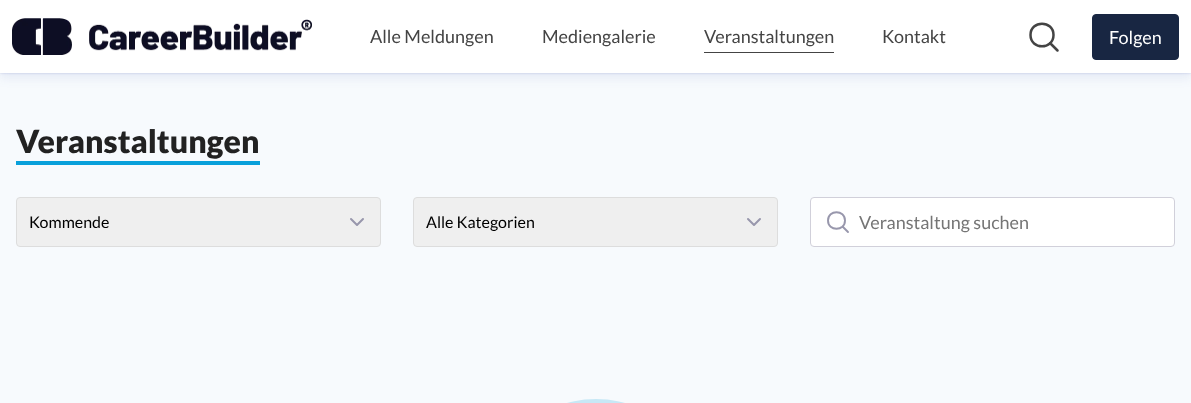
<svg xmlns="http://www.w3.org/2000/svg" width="1191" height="403">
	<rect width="100%" height="100%" fill="#F7FAFD" />
	<rect x="0" y="0" width="1191" height="73" fill="#3149A4" fill-opacity="0.14" filter="blur(1px)" />
	<rect x="0" y="0" width="1191" height="73" fill="#3149A4" fill-opacity="0.1" filter="blur(1.5px)" />
	<rect x="0" y="6" width="1191" height="73" fill="#3149A4" fill-opacity="0.08" filter="blur(5px)" />
	<rect x="0" y="0" width="1191" height="73" fill="#FFFFFF" />
	<image x="12" y="18" width="300" height="37" href="assets/img1.png" />
	<g font-family="Lato" font-size="18" fill="#444444">
		<text x="370" y="43">Alle Meldungen</text>
		<text x="542" y="43">Mediengalerie</text>
	</g>
	<rect x="704" y="52" width="130" height="1" fill="#444444" />
	<g font-family="Lato" font-size="18" fill="#444444">
		<text x="704" y="43">Veranstaltungen</text>
		<text x="882" y="43">Kontakt</text>
	</g>
	<path d="M1053.5 35C1053.5 50 1030.5 50 1030.5 35C1030.5 20 1053.5 20 1053.5 35ZM1057.5 50.5L1050 43" fill="none" stroke="#444444" stroke-width="2.5" stroke-linecap="round" />
	<rect x="1092.5" y="14.5" width="86" height="45" rx="3.5" fill="#182642" stroke="#182642" />
	<text x="1109" y="44" font-family="Lato" font-size="18" fill="#FFFFFF">Folgen</text>
	<rect x="16" y="161" width="244" height="4" fill="#09A0DB" />
	<text x="16" y="153" font-family="Lato" font-size="32" font-weight="900" fill="#222222">Veranstaltungen</text>
	<rect x="16.5" y="197.5" width="364" height="49" rx="3.5" fill="#EFEFEF" stroke="#DDDDDD" />
	<text x="29" y="228" font-family="Lato" font-size="16" fill="#000000">Kommende</text>
	<path d="M351 219L357 225L363 219" fill="none" stroke="#9897AC" stroke-width="2" stroke-linecap="round" stroke-linejoin="round" />
	<rect x="413.5" y="197.5" width="364" height="49" rx="3.5" fill="#EFEFEF" stroke="#DDDDDD" />
	<text x="426" y="228" font-family="Lato" font-size="16" fill="#000000">Alle Kategorien</text>
	<path d="M748 219L754 225L760 219" fill="none" stroke="#9897AC" stroke-width="2" stroke-linecap="round" stroke-linejoin="round" />
	<rect x="810.5" y="197.5" width="364" height="49" rx="3.5" fill="#FFFFFF" stroke="#D1D0DA" />
	<path d="M845 220.5C845 231.5 828 231.5 828 220.5C828 209.5 845 209.5 845 220.5ZM848 232L842.5 226.5" fill="none" stroke="#9897AC" stroke-width="1.9" stroke-linecap="round" />
	<text x="859" y="229" font-family="Lato" font-size="18" fill="#757575">Veranstaltung suchen</text>
	<rect x="536" y="399" width="120" height="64" rx="60" fill="#C7E8F6" />
</svg>
